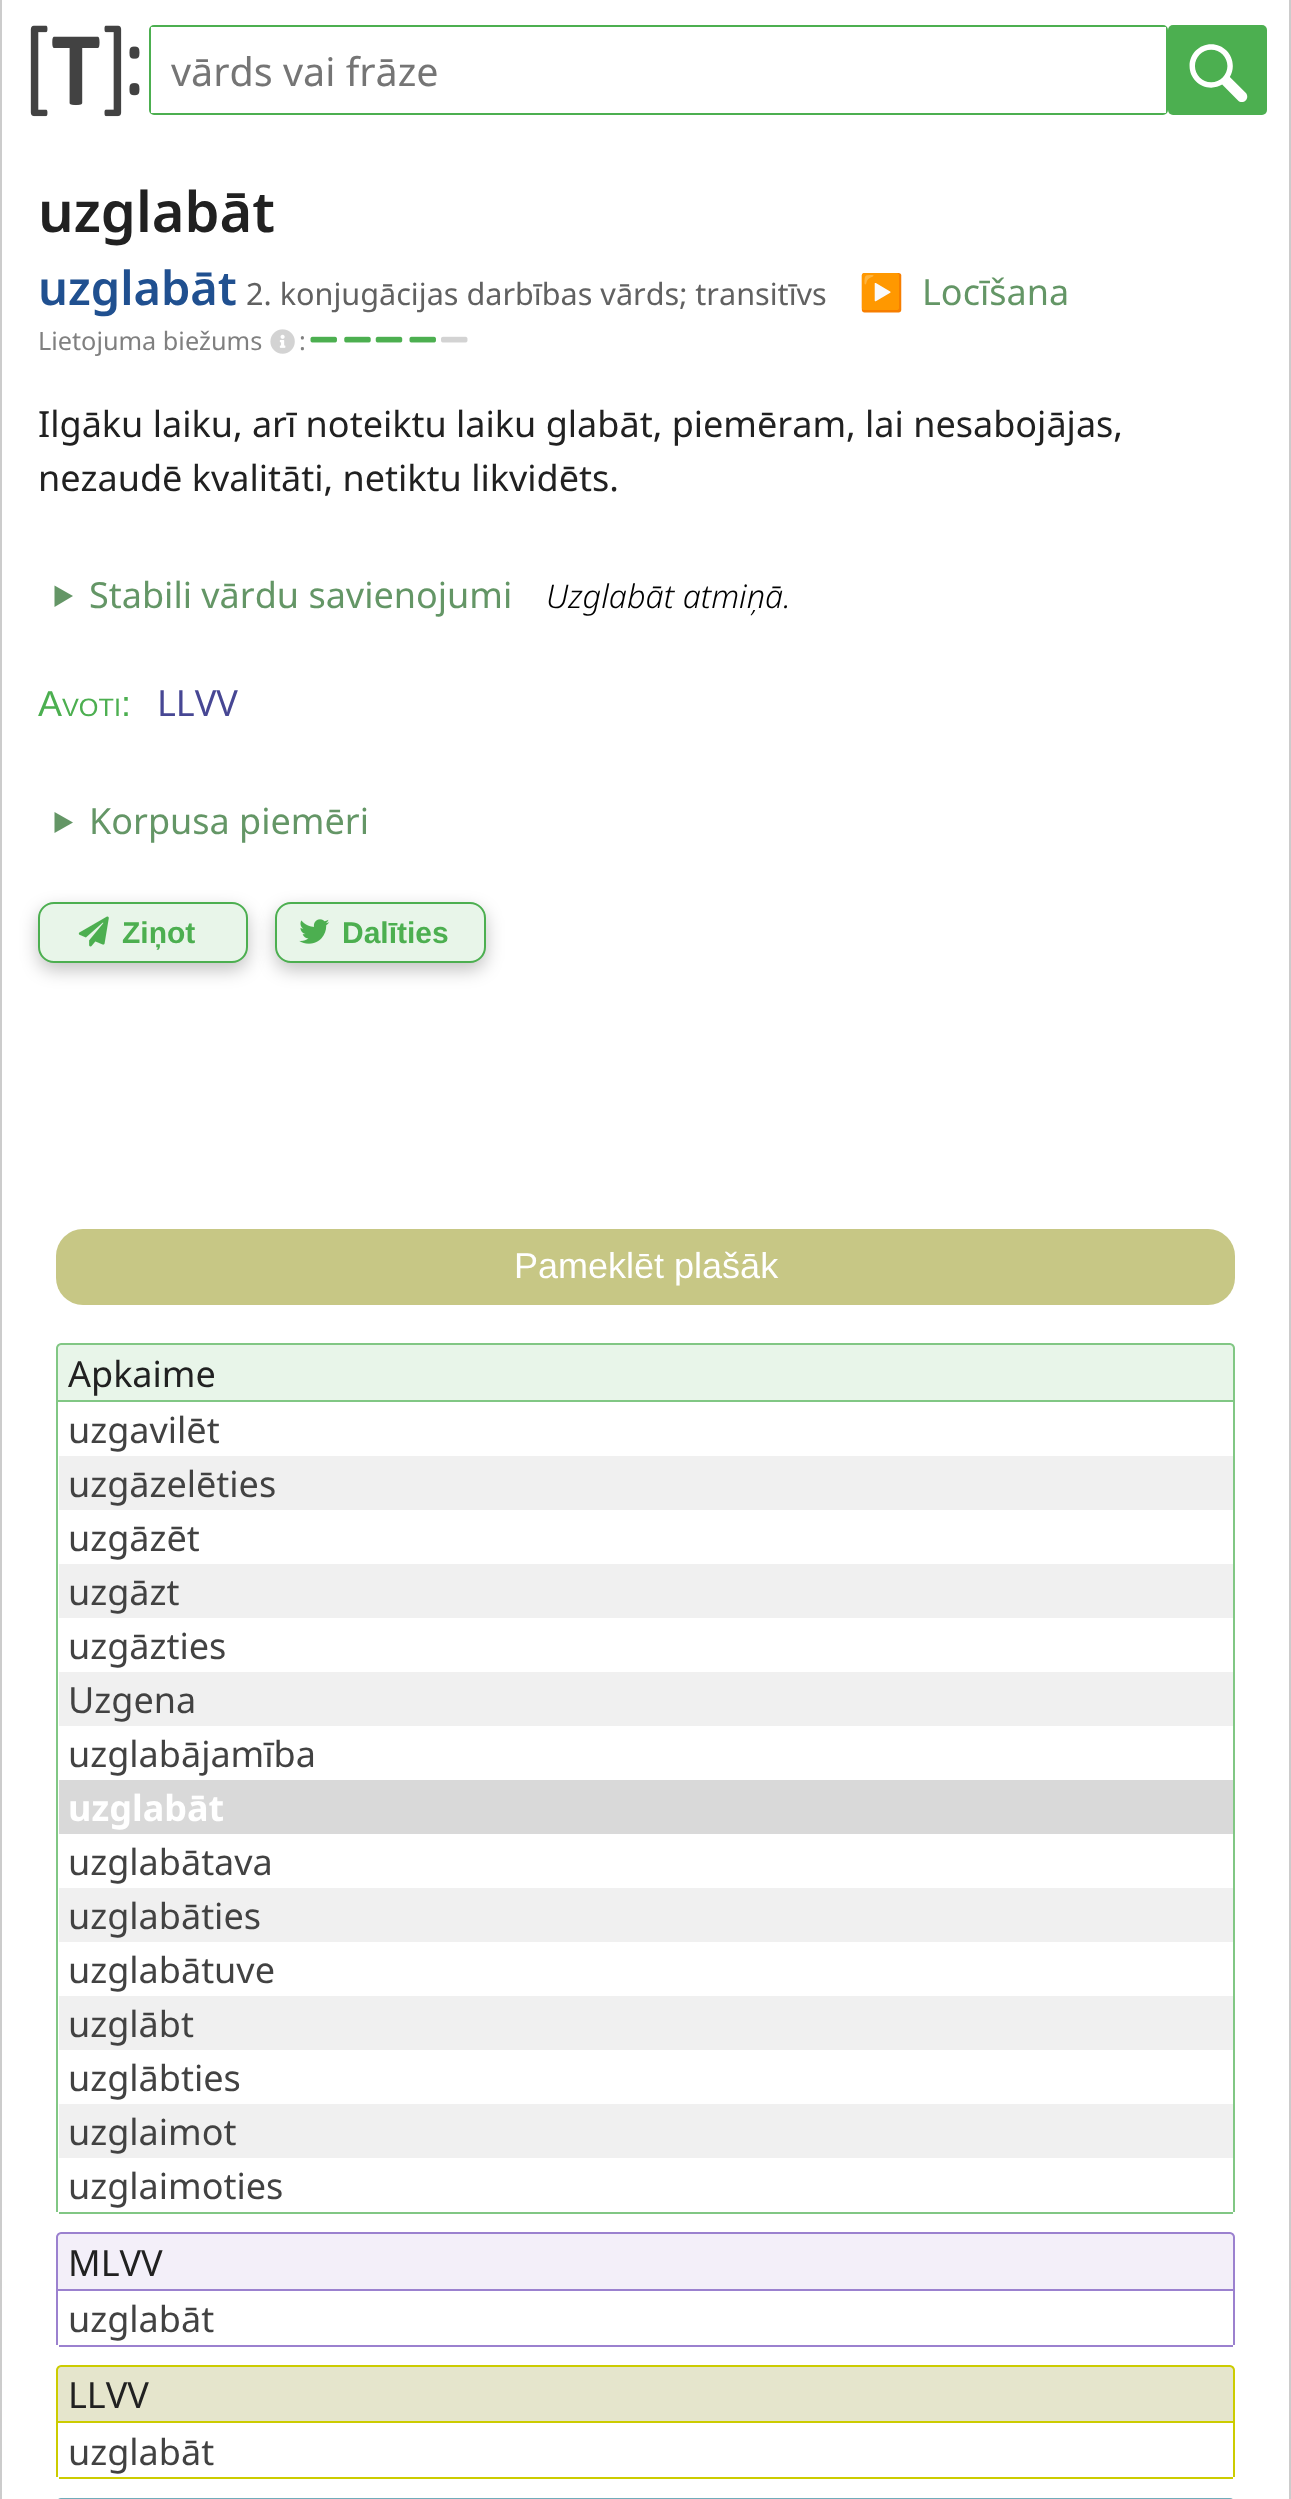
<svg xmlns="http://www.w3.org/2000/svg" width="1291" height="2499">
	<style>*{font-kerning:none!important;font-variant-ligatures:none!important}</style>
	<rect width="100%" height="100%" fill="#FFFFFF" />
	<rect x="1289" y="0" width="2" height="2499" fill="#CCCCCC" />
	<rect x="0" y="0" width="2" height="2499" fill="#CCCCCC" />
	<image x="30" y="25" width="110" height="92" href="assets/img1.png" />
	<rect x="150" y="26" width="1017" height="88" rx="4" fill="none" stroke="#4CAF50" stroke-width="2" />
	<rect x="151" y="27" width="1015" height="86" fill="#FFFFFF" />
	<text x="171" y="86" font-family="Noto Sans" font-size="39.5" fill="#757575">vārds vai frāze</text>
	<rect x="1168" y="25" width="99" height="90" rx="5" fill="#4CAF50" />
	<image x="1189" y="44" width="59" height="58" href="assets/img2.png" />
	<text x="38" y="232" font-family="Noto Sans" font-size="56" font-weight="600" fill="#212121">uzglabāt</text>
	<text x="38" y="305" font-family="Noto Sans" font-size="47" font-weight="600" fill="#205090">uzglabāt</text>
	<text x="246" y="305" font-family="Noto Sans" font-size="30.6" fill="#616161">2. konjugācijas darbības vārds; transitīvs</text>
	<text x="859" y="305" font-family="Noto Color Emoji" font-size="36" fill="#649666">▶</text>
	<text x="922" y="305" font-family="Noto Sans" font-size="36" fill="#649666">Locīšana</text>
	<text x="38" y="350" font-family="Noto Sans" font-size="25.25" fill="#808080">Lietojuma biežums</text>
	<image x="270" y="329" width="25" height="25" href="assets/img3.png" />
	<text x="299" y="350" font-family="Noto Sans" font-size="25.25" fill="#808080">:</text>
	<image x="310" y="336" width="27" height="7" href="assets/img4.png" />
	<image x="344" y="336" width="27" height="7" href="assets/img5.png" />
	<image x="375" y="336" width="28" height="7" href="assets/img6.png" />
	<image x="409" y="336" width="27" height="7" href="assets/img4.png" />
	<image x="441" y="336" width="27" height="7" href="assets/img7.png" />
	<g font-family="Noto Sans" font-size="36" fill="#212121">
		<text x="38" y="437">Ilgāku laiku, arī noteiktu laiku glabāt, piemēram, lai nesabojājas,</text>
		<text x="38" y="491">nezaudē kvalitāti, netiktu likvidēts.</text>
	</g>
	<path d="M54.5 585.5L73 596L54.5 607Z" fill="#649666" />
	<text x="89" y="608" font-family="Noto Sans" font-size="36" fill="#649666">Stabili vārdu savienojumi</text>
	<text x="546" y="608" font-family="Noto Sans" font-size="32.5" font-weight="300" font-style="italic" fill="#000000">Uzglabāt atmiņā.</text>
	<text x="38" y="716" font-family="Liberation Sans" font-size="36" fill="#4CAF50">A</text>
	<text x="62" y="716" font-family="Liberation Sans" font-size="25.25" fill="#4CAF50">VOTI</text>
	<text x="121" y="716" font-family="Liberation Sans" font-size="36" fill="#4CAF50">:</text>
	<text x="157" y="716" font-family="Noto Sans" font-size="36" fill="#474794">LLVV</text>
	<path d="M54.5 812L73 822.5L54.5 833Z" fill="#649666" />
	<text x="89" y="834" font-family="Noto Sans" font-size="36" fill="#649666">Korpusa piemēri</text>
	<rect x="38" y="909" width="210" height="61" rx="16" fill="#000000" fill-opacity="0.24" filter="blur(9px)" />
	<rect x="39" y="903" width="208" height="59" rx="15" fill="#E8F5E9" stroke="#4CAF50" stroke-width="2" />
	<image x="78" y="916" width="31" height="31" href="assets/img8.png" />
	<text x="122" y="943" font-family="Liberation Sans" font-size="30" font-weight="700" fill="#4CAF50">Ziņot</text>
	<rect x="275" y="909" width="211" height="61" rx="16" fill="#000000" fill-opacity="0.24" filter="blur(9px)" />
	<rect x="276" y="903" width="209" height="59" rx="15" fill="#E8F5E9" stroke="#4CAF50" stroke-width="2" />
	<image x="299" y="919" width="31" height="25" href="assets/img9.png" />
	<text x="342" y="943" font-family="Liberation Sans" font-size="30" font-weight="700" fill="#4CAF50">Dalīties</text>
	<rect x="56" y="1229" width="1179" height="76" rx="27" fill="#C7C785" />
	<text x="514" y="1278" font-family="Liberation Sans" font-size="36" fill="#FFFFFF">Pameklēt plašāk</text>
	<path d="M61 1344H1230C1232 1344 1234 1346 1234 1348V1401H57V1348C57 1346 59 1344 61 1344Z" fill="#E8F5E9" stroke="#81C784" stroke-width="2" />
	<text x="68" y="1387" font-family="Noto Sans" font-size="36" fill="#212121">Apkaime</text>
	<rect x="1233" y="1402" width="2" height="810" fill="#81C784" />
	<rect x="59" y="2212" width="1174" height="2" fill="#81C784" />
	<rect x="56" y="1402" width="2" height="810" fill="#81C784" />
	<text x="68" y="1443" font-family="Noto Sans" font-size="36" fill="#424242">uzgavilēt</text>
	<rect x="59" y="1456" width="1174" height="54" fill="#F0F0F0" />
	<g font-family="Noto Sans" font-size="36" fill="#424242">
		<text x="68" y="1497">uzgāzelēties</text>
		<text x="68" y="1551">uzgāzēt</text>
	</g>
	<rect x="59" y="1564" width="1174" height="54" fill="#F0F0F0" />
	<g font-family="Noto Sans" font-size="36" fill="#424242">
		<text x="68" y="1605">uzgāzt</text>
		<text x="68" y="1659">uzgāzties</text>
	</g>
	<rect x="59" y="1672" width="1174" height="54" fill="#F0F0F0" />
	<g font-family="Noto Sans" font-size="36" fill="#424242">
		<text x="68" y="1713">Uzgena</text>
		<text x="68" y="1767">uzglabājamība</text>
	</g>
	<rect x="59" y="1780" width="1174" height="54" fill="#D9D9D9" />
	<text x="68" y="1821" font-family="Noto Sans" font-size="36" font-weight="700" fill="#FFFFFF">uzglabāt</text>
	<text x="68" y="1875" font-family="Noto Sans" font-size="36" fill="#424242">uzglabātava</text>
	<rect x="59" y="1888" width="1174" height="54" fill="#F0F0F0" />
	<g font-family="Noto Sans" font-size="36" fill="#424242">
		<text x="68" y="1929">uzglabāties</text>
		<text x="68" y="1983">uzglabātuve</text>
	</g>
	<rect x="59" y="1996" width="1174" height="54" fill="#F0F0F0" />
	<g font-family="Noto Sans" font-size="36" fill="#424242">
		<text x="68" y="2037">uzglābt</text>
		<text x="68" y="2091">uzglābties</text>
	</g>
	<rect x="59" y="2104" width="1174" height="54" fill="#F0F0F0" />
	<g font-family="Noto Sans" font-size="36" fill="#424242">
		<text x="68" y="2145">uzglaimot</text>
		<text x="68" y="2199">uzglaimoties</text>
	</g>
	<path d="M61 2233H1230C1232 2233 1234 2235 1234 2237V2290H57V2237C57 2235 59 2233 61 2233Z" fill="#F3EFF9" stroke="#9B81CF" stroke-width="2" />
	<text x="68" y="2276" font-family="Noto Sans" font-size="36" fill="#212121">MLVV</text>
	<rect x="1233" y="2291" width="2" height="54" fill="#9B81CF" />
	<rect x="59" y="2345" width="1174" height="2" fill="#9B81CF" />
	<rect x="56" y="2291" width="2" height="54" fill="#9B81CF" />
	<text x="68" y="2332" font-family="Noto Sans" font-size="36" fill="#424242">uzglabāt</text>
	<path d="M61 2366H1230C1232 2366 1234 2368 1234 2370V2422H57V2370C57 2368 59 2366 61 2366Z" fill="#E5E5CC" stroke="#CCCC00" stroke-width="2" />
	<text x="68" y="2408" font-family="Noto Sans" font-size="36" fill="#212121">LLVV</text>
	<rect x="1233" y="2423" width="2" height="54" fill="#CCCC00" />
	<rect x="59" y="2477" width="1174" height="2" fill="#CCCC00" />
	<rect x="56" y="2423" width="2" height="54" fill="#CCCC00" />
	<text x="68" y="2465" font-family="Noto Sans" font-size="36" fill="#424242">uzglabāt</text>
	<path d="M61 2499H1230C1232 2499 1234 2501 1234 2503V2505H57V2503C57 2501 59 2499 61 2499Z" fill="none" stroke="#71ACBA" stroke-width="2" />
</svg>
